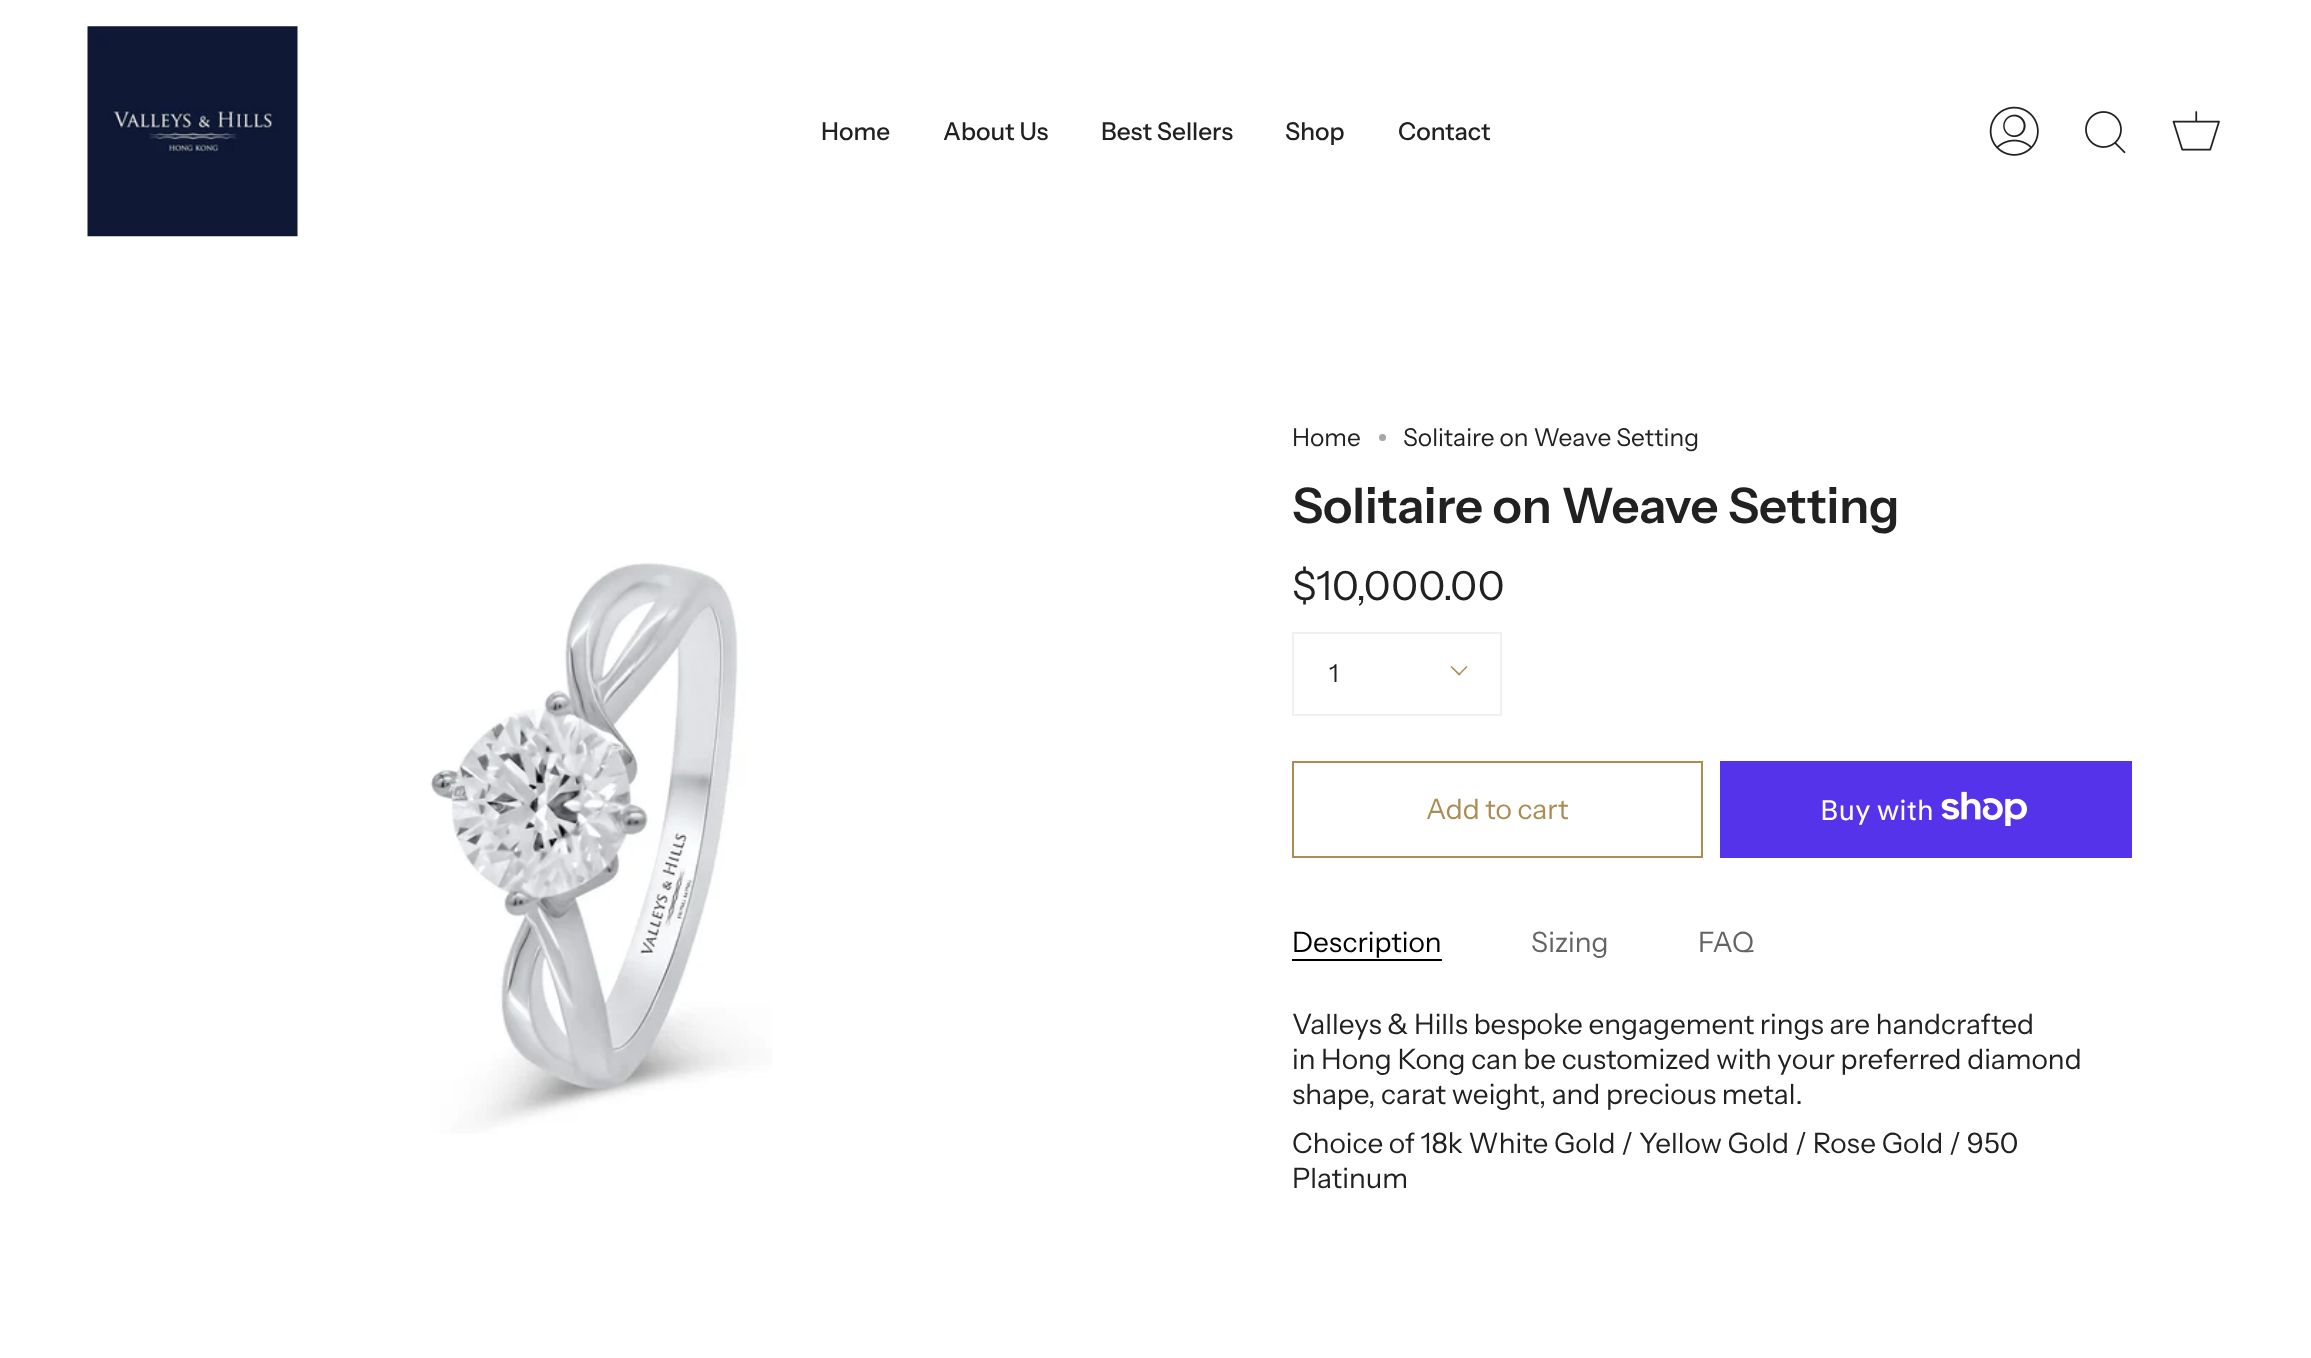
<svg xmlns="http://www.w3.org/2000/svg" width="2311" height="1358">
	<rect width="100%" height="100%" fill="#FFFFFF" />
	<image x="87" y="26" width="211" height="211" href="assets/img1.png" />
	<g font-family="Instrument Sans" font-size="24.5" font-weight="500" fill="#212121">
		<text x="821" y="140">Home</text>
		<text x="943" y="140">About Us</text>
		<text x="1101" y="140">Best Sellers</text>
		<text x="1285" y="140">Shop</text>
		<text x="1398" y="140">Contact</text>
	</g>
	<image x="1989" y="106" width="50" height="50" href="assets/img2.png" />
	<image x="2085" y="111" width="41" height="43" href="assets/img3.png" />
	<image x="2172" y="111" width="48" height="40" href="assets/img4.png" />
	<image x="430" y="562" width="342" height="572" href="assets/img5.png" />
	<text x="1292" y="446" font-family="Instrument Sans" font-size="24.5" fill="#212121">Home</text>
	<circle cx="1382.5" cy="437.5" r="3.5" fill="#A6A6A6" />
	<text x="1403" y="446" font-family="Instrument Sans" font-size="24.5" fill="#212121">Solitaire on Weave Setting</text>
	<text x="1292" y="523" font-family="Instrument Sans" font-size="49" font-weight="600" fill="#212121">Solitaire on Weave Setting</text>
	<text x="1292" y="600" font-family="Instrument Sans" font-size="40.25" fill="#212121">$10,000.00</text>
	<rect x="1293" y="633" width="208" height="82" fill="none" stroke="#F0F0F0" stroke-width="2" />
	<text x="1329" y="682" font-family="Instrument Sans" font-size="24.5" fill="#212121">1</text>
	<path d="M1458 674.5L1466.5 666L1467.5 667L1459 675.5Z" fill="#AB8C52" />
	<path d="M1450.5 667L1451.5 666L1460.5 674.5L1459 675.5Z" fill="#AB8C52" />
	<rect x="1293" y="762" width="409" height="95" fill="none" stroke="#AB8C52" stroke-width="2" />
	<text x="1426" y="819" font-family="Instrument Sans" font-size="28" fill="#AB8C52">Add to cart</text>
	<rect x="1720" y="761" width="412" height="97" fill="#5433EB" />
	<text x="1820" y="820" font-family="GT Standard" font-size="28" fill="#FFFFFF">Buy with</text>
	<image x="1941" y="791" width="86" height="35" href="assets/img6.png" />
	<rect x="1292" y="959" width="150" height="2" fill="#000000" />
	<text x="1292" y="952" font-family="Instrument Sans" font-size="28" fill="#000000">Description</text>
	<g font-family="Instrument Sans" font-size="28" fill="#646464">
		<text x="1531" y="952">Sizing</text>
		<text x="1698" y="952">FAQ</text>
	</g>
	<g font-family="Instrument Sans" font-size="28" fill="#212121">
		<text x="1292" y="1034">Valleys &amp; Hills bespoke engagement rings are handcrafted</text>
		<text x="1292" y="1069">in Hong Kong can be customized with your preferred diamond</text>
		<text x="1292" y="1104">shape, carat weight, and precious metal.</text>
		<text x="1292" y="1153">Choice of 18k White Gold / Yellow Gold / Rose Gold / 950</text>
		<text x="1292" y="1188">Platinum</text>
	</g>
</svg>
